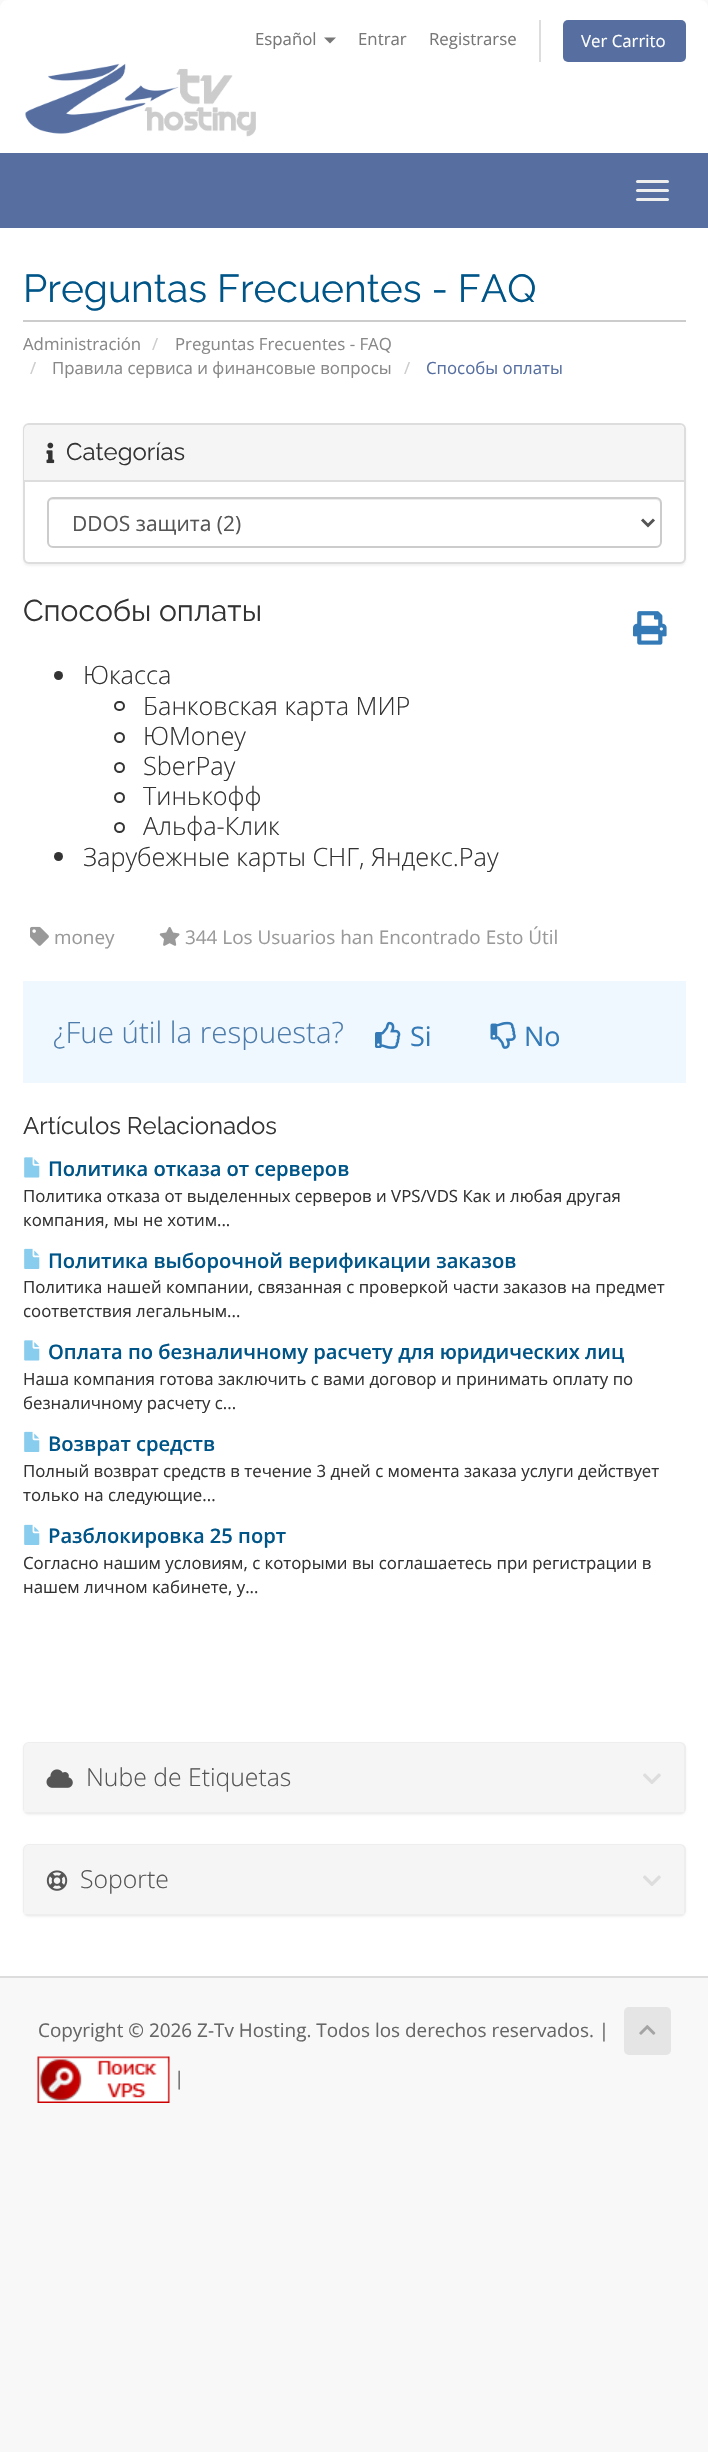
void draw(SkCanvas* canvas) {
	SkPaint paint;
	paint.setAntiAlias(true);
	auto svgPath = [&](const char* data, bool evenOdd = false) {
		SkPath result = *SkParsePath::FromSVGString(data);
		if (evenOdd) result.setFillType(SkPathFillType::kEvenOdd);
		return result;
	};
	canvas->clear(0xfff8f8f8);
	paint.setColor(0xffffffff);
	canvas->drawPath(svgPath("M8 0H700C704.5 0 708 3.5 708 8V153H0V8C0 3.5 3.5 0 8 0Z"), paint);
	SkFont f1(fontMgr->matchFamilyStyle("Open Sans", SkFontStyle::Normal()), 16.8);
	f1.setSubpixel(true);
	paint.setColor(0xff777777);
	canvas->drawString("Español", 255, 45, f1, paint);
	canvas->drawPath(svgPath("M324 37.5H336L330 43.5Z"), paint);
	canvas->drawString("Entrar", 358, 45, f1, paint);
	canvas->drawString("Registrarse", 429, 45, f1, paint);
	paint.setColor(0xffdddddd);
	canvas->drawRect(SkRect::MakeXYWH(539, 20, 2, 42), paint);
	paint.setColor(0xff566fa0);
	canvas->drawRoundRect(SkRect::MakeXYWH(563, 20, 123, 42), 5, 5, paint);
	paint.setColor(0xffffffff);
	canvas->drawString("Ver Carrito", 581, 47, f1, paint);
	canvas->drawImageRect(SkImages::DeferredFromEncodedData(SkData::MakeFromFileName("img1.png")), SkRect::MakeXYWH(25, 63, 231, 74), SkSamplingOptions());
	paint.setColor(0xff566fa0);
	canvas->drawRect(SkRect::MakeXYWH(0, 153, 708, 75), paint);
	paint.setColor(0xffeeeeee);
	canvas->drawRoundRect(SkRect::MakeXYWH(636, 180, 33, 3), 1.5, 1.5, paint);
	canvas->drawRoundRect(SkRect::MakeXYWH(636, 189, 33, 3), 1.5, 1.5, paint);
	canvas->drawRoundRect(SkRect::MakeXYWH(636, 198, 33, 3), 1.5, 1.5, paint);
	paint.setColor(0xffffffff);
	canvas->drawRect(SkRect::MakeXYWH(0, 228, 708, 1748), paint);
	paint.setColor(0xffcccccc);
	canvas->drawRect(SkRect::MakeXYWH(23, 320, 663, 2), paint);
	SkFont f2(fontMgr->matchFamilyStyle("Raleway", SkFontStyle::Normal()), 39);
	f2.setSubpixel(true);
	paint.setColor(0xff005588);
	canvas->drawString("Preguntas Frecuentes - FAQ", 23, 302, f2, paint);
	paint.setColor(0xff888888);
	canvas->drawString("Administración", 23, 350, f1, paint);
	paint.setColor(0xffcccccc);
	canvas->drawString("/", 152, 350, f1, paint);
	paint.setColor(0xff888888);
	canvas->drawString("Preguntas Frecuentes - FAQ", 175, 350, f1, paint);
	paint.setColor(0xffcccccc);
	canvas->drawString("/", 30, 374, f1, paint);
	paint.setColor(0xff888888);
	canvas->drawString("Правила сервиса и финансовые вопросы", 52, 374, f1, paint);
	paint.setColor(0xffcccccc);
	canvas->drawString("/", 404, 374, f1, paint);
	paint.setColor(0xff566fa0);
	canvas->drawString("Способы оплаты", 426, 374, f1, paint);
	paint.setColor(0x0d000000);
	paint.setMaskFilter(SkMaskFilter::MakeBlur(kNormal_SkBlurStyle, 1));
	canvas->drawRoundRect(SkRect::MakeXYWH(23, 425, 663, 141), 6, 6, paint);
	paint.setMaskFilter(nullptr);
	paint.setColor(0xffffffff);
	canvas->drawRoundRect(SkRect::MakeXYWH(24, 424, 661, 139), 5, 5, paint);
	paint.setStroke(true);
	paint.setStrokeWidth(2);
	paint.setColor(0xffdddddd);
	canvas->drawRoundRect(SkRect::MakeXYWH(24, 424, 661, 139), 5, 5, paint);
	paint.setStroke(false);
	paint.setColor(0xfff5f5f5);
	canvas->drawPath(svgPath("M29 425H679C682 425 684 427 684 430V482H24V430C24 427 26 425 29 425Z"), paint);
	paint.setColor(0xffdddddd);
	canvas->drawRect(SkRect::MakeXYWH(24, 480, 660, 2), paint);
	canvas->drawImageRect(SkImages::DeferredFromEncodedData(SkData::MakeFromFileName("img2.png")), SkRect::MakeXYWH(46, 442, 9, 22), SkSamplingOptions());
	SkFont f3(fontMgr->matchFamilyStyle("Raleway", SkFontStyle::Normal()), 24);
	f3.setSubpixel(true);
	paint.setColor(0xff333333);
	canvas->drawString("Categorías", 66, 460, f3, paint);
	paint.setColor(0xffececec);
	canvas->drawPath(svgPath("M52 500H656C658 500 660 502 660 504V503C660 500 658 498 655 498H53C50 498 48 500 48 503V504C48 502 50 500 52 500Z"), paint);
	paint.setStroke(true);
	paint.setColor(0xffcccccc);
	canvas->drawRoundRect(SkRect::MakeXYWH(48, 498, 613, 49), 5, 5, paint);
	paint.setStrokeWidth(3);
	paint.setColor(0xff555555);
	canvas->drawPath(svgPath("M642 519.5L648 525.5L654 519.5"), paint);
	SkFont f4(fontMgr->matchFamilyStyle("Open Sans", SkFontStyle::Normal()), 21);
	f4.setSubpixel(true);
	paint.setStroke(false);
	canvas->drawString("DDOS защита (2)", 72, 531, f4, paint);
	SkFont f5(fontMgr->matchFamilyStyle("Raleway", SkFontStyle::Normal()), 30);
	f5.setSubpixel(true);
	paint.setColor(0xff333333);
	canvas->drawString("Способы оплаты", 23, 621, f5, paint);
	canvas->drawImageRect(SkImages::DeferredFromEncodedData(SkData::MakeFromFileName("img3.png")), SkRect::MakeXYWH(633, 611, 34, 34), SkSamplingOptions());
	canvas->drawCircle(58.5, 675.5, 4.5, paint);
	SkFont f6(fontMgr->matchFamilyStyle("Open Sans", SkFontStyle(300, SkFontStyle::kNormal_Width, SkFontStyle::kUpright_Slant)), 25.25);
	f6.setSubpixel(true);
	canvas->drawString("Юкасса", 83, 684, f6, paint);
	paint.setStroke(true);
	paint.setStrokeWidth(2);
	canvas->drawRoundRect(SkRect::MakeXYWH(115, 702, 9, 8), 4, 4, paint);
	paint.setStroke(false);
	canvas->drawString("Банковская карта МИР", 143, 715, f6, paint);
	paint.setStroke(true);
	canvas->drawCircle(119.5, 737.5, 4.5, paint);
	paint.setStroke(false);
	canvas->drawString("ЮMoney", 143, 745, f6, paint);
	paint.setStroke(true);
	canvas->drawCircle(119.5, 767.5, 4.5, paint);
	paint.setStroke(false);
	canvas->drawString("SberPay", 143, 775, f6, paint);
	paint.setStroke(true);
	canvas->drawCircle(119.5, 797.5, 4.5, paint);
	paint.setStroke(false);
	canvas->drawString("Тинькофф", 143, 805, f6, paint);
	paint.setStroke(true);
	canvas->drawCircle(119.5, 827.5, 4.5, paint);
	paint.setStroke(false);
	canvas->drawString("Альфа-Клик", 143, 835, f6, paint);
	canvas->drawCircle(58.5, 856.5, 4.5, paint);
	canvas->drawString("Зарубежные карты СНГ, Яндекс.Pay", 83, 866, f6, paint);
	canvas->drawImageRect(SkImages::DeferredFromEncodedData(SkData::MakeFromFileName("img4.png")), SkRect::MakeXYWH(30, 926, 19, 20), SkSamplingOptions());
	SkFont f7(fontMgr->matchFamilyStyle("Open Sans", SkFontStyle::Normal()), 18.9);
	f7.setSubpixel(true);
	paint.setColor(0xff999999);
	canvas->drawString("money", 54, 944, f7, paint);
	canvas->drawImageRect(SkImages::DeferredFromEncodedData(SkData::MakeFromFileName("img5.png")), SkRect::MakeXYWH(159, 927, 21, 19), SkSamplingOptions());
	canvas->drawString("344 Los Usuarios han Encontrado Esto Útil", 185, 944, f7, paint);
	paint.setColor(0xffeff7ff);
	canvas->drawRect(SkRect::MakeXYWH(23, 981, 663, 102), paint);
	SkFont f8(fontMgr->matchFamilyStyle("Open Sans", SkFontStyle(300, SkFontStyle::kNormal_Width, SkFontStyle::kUpright_Slant)), 29.5);
	f8.setSubpixel(true);
	paint.setColor(0xff4d7cab);
	canvas->drawString("¿Fue útil la respuesta?", 53, 1043, f8, paint);
	canvas->drawImageRect(SkImages::DeferredFromEncodedData(SkData::MakeFromFileName("img6.png")), SkRect::MakeXYWH(375, 1021, 26, 28), SkSamplingOptions());
	SkFont f9(fontMgr->matchFamilyStyle("Open Sans", SkFontStyle::Normal()), 27);
	f9.setSubpixel(true);
	paint.setColor(0xff337ab7);
	canvas->drawString("Si", 410, 1046, f9, paint);
	canvas->drawImageRect(SkImages::DeferredFromEncodedData(SkData::MakeFromFileName("img7.png")), SkRect::MakeXYWH(490, 1021, 26, 28), SkSamplingOptions());
	canvas->drawString("No", 524, 1046, f9, paint);
	paint.setColor(0xff333333);
	canvas->drawString("Artículos Relacionados", 23, 1134, f3, paint);
	canvas->drawImageRect(SkImages::DeferredFromEncodedData(SkData::MakeFromFileName("img8.png")), SkRect::MakeXYWH(24, 1157, 16, 21), SkSamplingOptions());
	SkFont f10(fontMgr->matchFamilyStyle("Open Sans", SkFontStyle(600, SkFontStyle::kNormal_Width, SkFontStyle::kUpright_Slant)), 20.15);
	f10.setSubpixel(true);
	paint.setColor(0xff005588);
	canvas->drawString("Политика отказа от серверов", 48, 1176, f10, paint);
	paint.setColor(0xff333333);
	canvas->drawString("Политика отказа от выделенных серверов и VPS/VDS Как и любая другая", 23, 1202, f1, paint);
	canvas->drawString("компания, мы не хотим...", 23, 1226, f1, paint);
	canvas->drawImageRect(SkImages::DeferredFromEncodedData(SkData::MakeFromFileName("img9.png")), SkRect::MakeXYWH(24, 1248, 16, 21), SkSamplingOptions());
	paint.setColor(0xff005588);
	canvas->drawString("Политика выборочной верификации заказов", 48, 1268, f10, paint);
	paint.setColor(0xff333333);
	canvas->drawString("Политика нашей компании, связанная с проверкой части заказов на предмет", 23, 1293, f1, paint);
	canvas->drawString("соответствия легальным...", 23, 1317, f1, paint);
	canvas->drawImageRect(SkImages::DeferredFromEncodedData(SkData::MakeFromFileName("img8.png")), SkRect::MakeXYWH(24, 1340, 16, 21), SkSamplingOptions());
	paint.setColor(0xff005588);
	canvas->drawString("Оплата по безналичному расчету для юридических лиц", 48, 1359, f10, paint);
	paint.setColor(0xff333333);
	canvas->drawString("Наша компания готова заключить с вами договор и принимать оплату по", 23, 1385, f1, paint);
	canvas->drawString("безналичному расчету с...", 23, 1409, f1, paint);
	canvas->drawImageRect(SkImages::DeferredFromEncodedData(SkData::MakeFromFileName("img9.png")), SkRect::MakeXYWH(24, 1431, 16, 21), SkSamplingOptions());
	paint.setColor(0xff005588);
	canvas->drawString("Возврат средств", 48, 1451, f10, paint);
	paint.setColor(0xff333333);
	canvas->drawString("Полный возврат средств в течение 3 дней с момента заказа услуги действует", 23, 1477, f1, paint);
	canvas->drawString("только на следующие...", 23, 1501, f1, paint);
	canvas->drawImageRect(SkImages::DeferredFromEncodedData(SkData::MakeFromFileName("img9.png")), SkRect::MakeXYWH(24, 1524, 16, 21), SkSamplingOptions());
	paint.setColor(0xff005588);
	canvas->drawString("Разблокировка 25 порт", 48, 1543, f10, paint);
	paint.setColor(0xff333333);
	canvas->drawString("Согласно нашим условиям, с которыми вы соглашаетесь при регистрации в", 23, 1569, f1, paint);
	canvas->drawString("нашем личном кабинете, у...", 23, 1593, f1, paint);
	paint.setColor(0x0d000000);
	paint.setMaskFilter(SkMaskFilter::MakeBlur(kNormal_SkBlurStyle, 1));
	canvas->drawRoundRect(SkRect::MakeXYWH(23, 1743, 663, 72), 6, 6, paint);
	paint.setMaskFilter(nullptr);
	paint.setStroke(true);
	paint.setColor(0xffeeeeee);
	canvas->drawRoundRect(SkRect::MakeXYWH(24, 1743, 661, 70), 5, 5, paint);
	paint.setStroke(false);
	paint.setColor(0xfff5f5f5);
	canvas->drawPath(svgPath("M29 1743H679C682 1743 684 1745 684 1748V1812H24V1748C24 1745 26 1743 29 1743Z"), paint);
	canvas->drawImageRect(SkImages::DeferredFromEncodedData(SkData::MakeFromFileName("img10.png")), SkRect::MakeXYWH(46, 1769, 27, 19), SkSamplingOptions());
	SkFont f11(fontMgr->matchFamilyStyle("Open Sans", SkFontStyle(300, SkFontStyle::kNormal_Width, SkFontStyle::kUpright_Slant)), 24.75);
	f11.setSubpixel(true);
	paint.setColor(0xff555555);
	canvas->drawString("Nube de Etiquetas", 86, 1786, f11, paint);
	canvas->drawImageRect(SkImages::DeferredFromEncodedData(SkData::MakeFromFileName("img11.png")), SkRect::MakeXYWH(643, 1773, 18, 11), SkSamplingOptions());
	paint.setColor(0x0d000000);
	paint.setMaskFilter(SkMaskFilter::MakeBlur(kNormal_SkBlurStyle, 1));
	canvas->drawRoundRect(SkRect::MakeXYWH(23, 1845, 663, 72), 6, 6, paint);
	paint.setMaskFilter(nullptr);
	paint.setStroke(true);
	paint.setColor(0xffeeeeee);
	canvas->drawRoundRect(SkRect::MakeXYWH(24, 1845, 661, 70), 5, 5, paint);
	paint.setStroke(false);
	paint.setColor(0xfff5f5f5);
	canvas->drawPath(svgPath("M29 1845H679C682 1845 684 1847 684 1850V1914H24V1850C24 1847 26 1845 29 1845Z"), paint);
	canvas->drawImageRect(SkImages::DeferredFromEncodedData(SkData::MakeFromFileName("img12.png")), SkRect::MakeXYWH(46, 1870, 22, 21), SkSamplingOptions());
	paint.setColor(0xff555555);
	canvas->drawString("Soporte", 80, 1888, f11, paint);
	canvas->drawImageRect(SkImages::DeferredFromEncodedData(SkData::MakeFromFileName("img11.png")), SkRect::MakeXYWH(643, 1875, 18, 11), SkSamplingOptions());
	paint.setColor(0xffdddddd);
	canvas->drawRect(SkRect::MakeXYWH(0, 1976, 708, 2), paint);
	paint.setColor(0xff666666);
	canvas->drawString("Copyright © 2026 Z-Tv Hosting. Todos los derechos reservados. |", 38, 2037, f7, paint);
	canvas->drawImageRect(SkImages::DeferredFromEncodedData(SkData::MakeFromFileName("img13.png")), SkRect::MakeXYWH(37, 2056, 133, 47), SkSamplingOptions());
	canvas->drawString("|", 174, 2085, f7, paint);
	paint.setColor(0xffe5e5e5);
	canvas->drawRoundRect(SkRect::MakeXYWH(624, 2007, 47, 48), 5, 5, paint);
	canvas->drawImageRect(SkImages::DeferredFromEncodedData(SkData::MakeFromFileName("img14.png")), SkRect::MakeXYWH(639, 2025, 17, 10), SkSamplingOptions());
}
